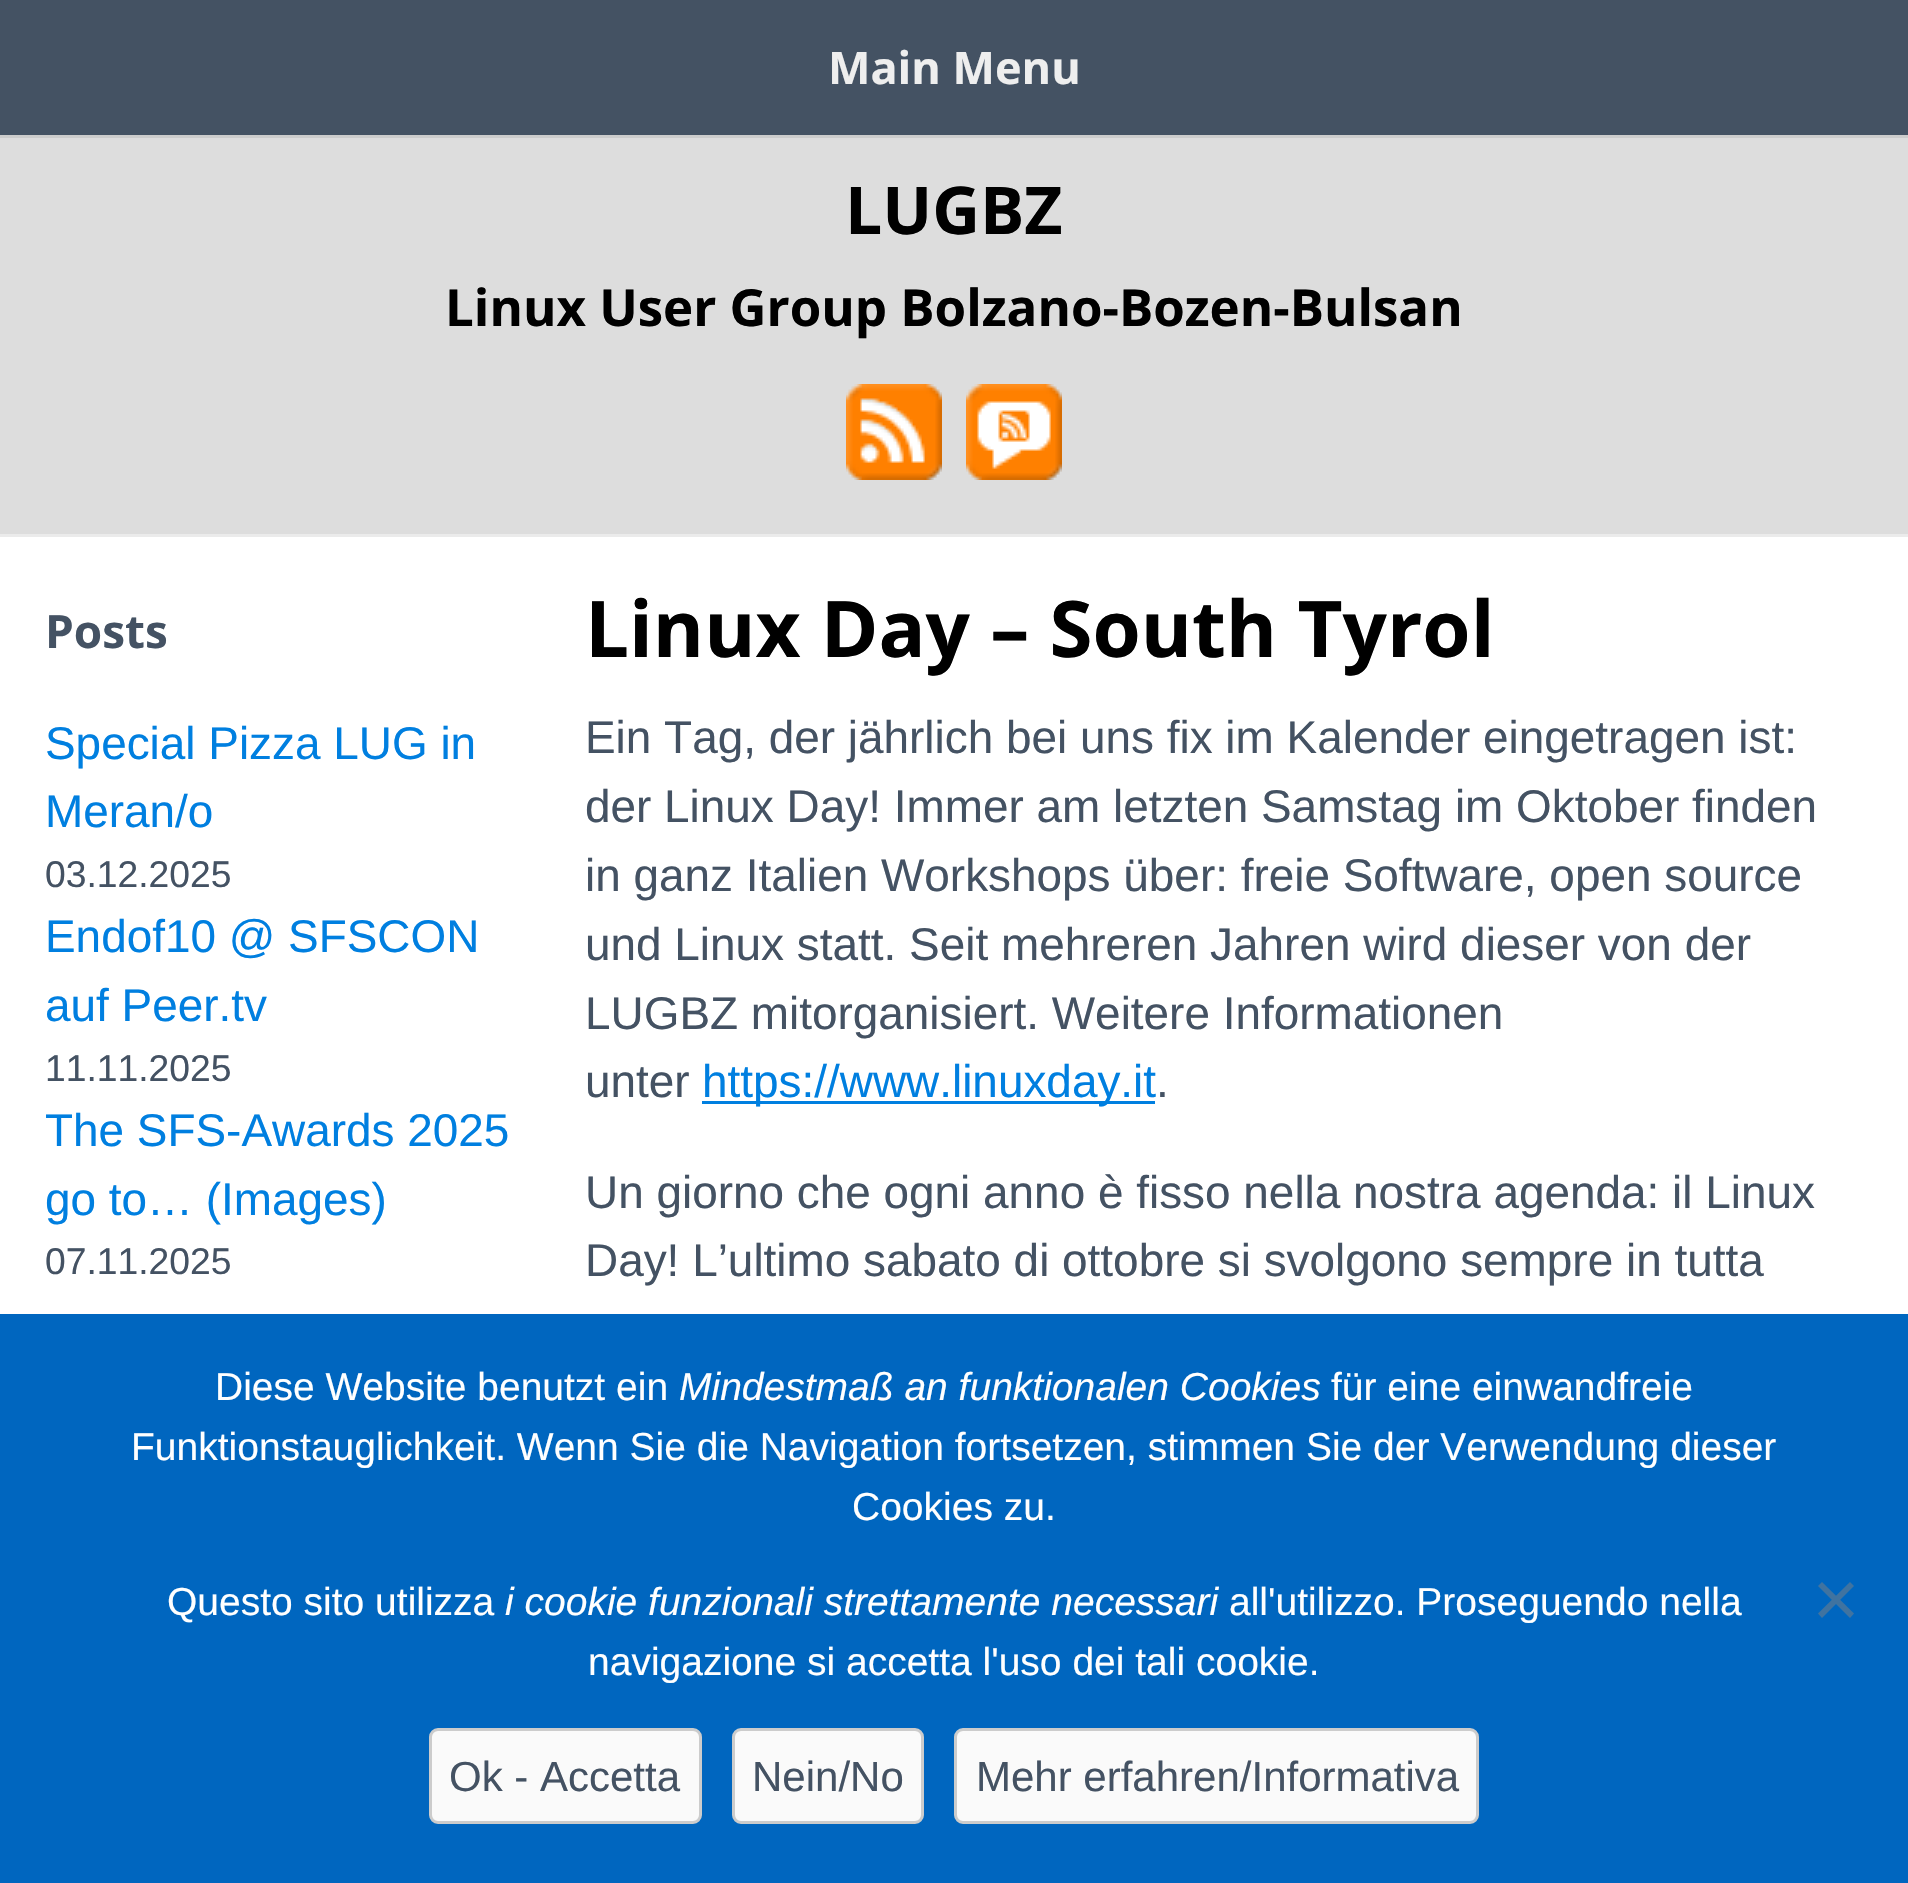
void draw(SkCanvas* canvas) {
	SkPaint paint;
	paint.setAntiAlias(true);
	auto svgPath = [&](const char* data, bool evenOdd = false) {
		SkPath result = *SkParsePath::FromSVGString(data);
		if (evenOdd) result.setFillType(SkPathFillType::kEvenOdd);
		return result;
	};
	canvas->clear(0xff445263);
	paint.setColor(0xffcccccc);
	canvas->drawRect(SkRect::MakeXYWH(0, 135, 1908, 3), paint);
	SkFont f1(fontMgr->matchFamilyStyle("Open Sans", SkFontStyle::Bold()), 45);
	f1.setSubpixel(true);
	paint.setColor(0xffeeeeee);
	canvas->drawString("Main Menu", 828, 84, f1, paint);
	paint.setColor(0xffdddddd);
	canvas->drawRect(SkRect::MakeXYWH(0, 138, 1908, 396), paint);
	paint.setColor(0xffebebeb);
	canvas->drawRect(SkRect::MakeXYWH(0, 534, 1908, 3), paint);
	SkFont f2(fontMgr->matchFamilyStyle("Open Sans", SkFontStyle::Bold()), 66);
	f2.setSubpixel(true);
	paint.setColor(0xff000000);
	canvas->drawString("LUGBZ", 845, 234, f2, paint);
	SkFont f3(fontMgr->matchFamilyStyle("Open Sans", SkFontStyle::Bold()), 51);
	f3.setSubpixel(true);
	canvas->drawString("Linux User Group Bolzano-Bozen-Bulsan", 445, 326, f3, paint);
	canvas->drawImageRect(SkImages::DeferredFromEncodedData(SkData::MakeFromFileName("img1.png")), SkRect::MakeXYWH(846, 384, 96, 96), SkSamplingOptions());
	canvas->drawImageRect(SkImages::DeferredFromEncodedData(SkData::MakeFromFileName("img2.png")), SkRect::MakeXYWH(966, 384, 96, 96), SkSamplingOptions());
	paint.setColor(0xffffffff);
	canvas->drawRect(SkRect::MakeXYWH(0, 537, 1908, 777), paint);
	SkFont f4(fontMgr->matchFamilyStyle("Open Sans", SkFontStyle::Bold()), 45.9);
	f4.setSubpixel(true);
	paint.setColor(0xff445263);
	canvas->drawString("Posts", 45, 648, f4, paint);
	SkFont f5(fontMgr->matchFamilyStyle("Liberation Sans", SkFontStyle::Normal()), 45.9);
	f5.setSubpixel(true);
	paint.setColor(0xff007fe0);
	canvas->drawString("Special Pizza LUG in", 45, 759, f5, paint);
	canvas->drawString("Meran/o", 45, 827, f5, paint);
	SkFont f6(fontMgr->matchFamilyStyle("Liberation Sans", SkFontStyle::Normal()), 37.25);
	f6.setSubpixel(true);
	paint.setColor(0xff445263);
	canvas->drawString("03.12.2025", 45, 887, f6, paint);
	paint.setColor(0xff007fe0);
	canvas->drawString("Endof10 @ SFSCON", 45, 952, f5, paint);
	canvas->drawString("auf Peer.tv", 45, 1021, f5, paint);
	paint.setColor(0xff445263);
	canvas->drawString("11.11.2025", 45, 1081, f6, paint);
	paint.setColor(0xff007fe0);
	canvas->drawString("The SFS-Awards 2025", 45, 1146, f5, paint);
	canvas->drawString("go to… (Images)", 45, 1215, f5, paint);
	paint.setColor(0xff445263);
	canvas->drawString("07.11.2025", 45, 1274, f6, paint);
	SkFont f7(fontMgr->matchFamilyStyle("Open Sans", SkFontStyle::Bold()), 78);
	f7.setSubpixel(true);
	paint.setColor(0xff000000);
	canvas->drawString("Linux Day – South Tyrol", 585, 657, f7, paint);
	paint.setColor(0xff445263);
	canvas->drawString("Ein Tag, der jährlich bei uns fix im Kalender eingetragen ist:", 585, 753, f5, paint);
	canvas->drawString("der Linux Day! Immer am letzten Samstag im Oktober finden", 585, 822, f5, paint);
	canvas->drawString("in ganz Italien Workshops über: freie Software, open source", 585, 891, f5, paint);
	canvas->drawString("und Linux statt. Seit mehreren Jahren wird dieser von der", 585, 960, f5, paint);
	canvas->drawString("LUGBZ mitorganisiert. Weitere Informationen", 585, 1029, f5, paint);
	canvas->drawString("unter", 585, 1097, f5, paint);
	paint.setColor(0xff007fe0);
	canvas->drawRect(SkRect::MakeXYWH(702, 1101, 453, 3), paint);
	canvas->drawString("https://www.linuxday.it", 702, 1097, f5, paint);
	paint.setColor(0xff445263);
	canvas->drawString(".", 1156, 1097, f5, paint);
	canvas->drawString("Un giorno che ogni anno è fisso nella nostra agenda: il Linux", 585, 1208, f5, paint);
	canvas->drawString("Day! L’ultimo sabato di ottobre si svolgono sempre in tutta", 585, 1276, f5, paint);
	paint.setColor(0xff0066bf);
	canvas->drawRect(SkRect::MakeXYWH(0, 1314, 1908, 569), paint);
	SkFont f8(fontMgr->matchFamilyStyle("Liberation Sans", SkFontStyle::Normal()), 39);
	f8.setSubpixel(true);
	paint.setColor(0xffffffff);
	canvas->drawString("Diese Website benutzt ein", 215, 1400, f8, paint);
	SkFont f9(fontMgr->matchFamilyStyle("Liberation Sans", SkFontStyle::Italic()), 39);
	f9.setSubpixel(true);
	canvas->drawString("Mindestmaß an funktionalen Cookies", 679, 1400, f9, paint);
	canvas->drawString("für eine einwandfreie", 1331, 1400, f8, paint);
	canvas->drawString("Funktionstauglichkeit. Wenn Sie die Navigation fortsetzen, stimmen Sie der Verwendung dieser", 131, 1460, f8, paint);
	canvas->drawString("Cookies zu.", 852, 1520, f8, paint);
	canvas->drawString("Questo sito utilizza", 167, 1615, f8, paint);
	canvas->drawString("i cookie funzionali strettamente necessari", 505, 1615, f9, paint);
	canvas->drawString("all'utilizzo. Proseguendo nella", 1229, 1615, f8, paint);
	canvas->drawString("navigazione si accetta l'uso dei tali cookie.", 588, 1675, f8, paint);
	paint.setColor(0xff4073a0);
	canvas->drawPath(svgPath("M1850 1582L1854 1586L1822 1618L1818 1613.5Z"), paint);
	canvas->drawPath(svgPath("M1818 1586L1822 1582L1854 1613.5L1850 1618Z"), paint);
	paint.setColor(0xfffafafa);
	canvas->drawRoundRect(SkRect::MakeXYWH(430.5, 1729.5, 270, 93), 7.5, 7.5, paint);
	paint.setStroke(true);
	paint.setStrokeWidth(3);
	paint.setColor(0xffcccccc);
	canvas->drawRoundRect(SkRect::MakeXYWH(430.5, 1729.5, 270, 93), 7.5, 7.5, paint);
	SkFont f10(fontMgr->matchFamilyStyle("Liberation Sans", SkFontStyle::Normal()), 42);
	f10.setSubpixel(true);
	paint.setStroke(false);
	paint.setColor(0xff445263);
	canvas->drawString("Ok - Accetta", 449, 1791, f10, paint);
	paint.setColor(0xfffafafa);
	canvas->drawRoundRect(SkRect::MakeXYWH(733.5, 1729.5, 189, 93), 7.5, 7.5, paint);
	paint.setStroke(true);
	paint.setColor(0xffcccccc);
	canvas->drawRoundRect(SkRect::MakeXYWH(733.5, 1729.5, 189, 93), 7.5, 7.5, paint);
	paint.setStroke(false);
	paint.setColor(0xff445263);
	canvas->drawString("Nein/No", 752, 1791, f10, paint);
	paint.setColor(0xfffafafa);
	canvas->drawRoundRect(SkRect::MakeXYWH(955.5, 1729.5, 522, 93), 7.5, 7.5, paint);
	paint.setStroke(true);
	paint.setColor(0xffcccccc);
	canvas->drawRoundRect(SkRect::MakeXYWH(955.5, 1729.5, 522, 93), 7.5, 7.5, paint);
	paint.setStroke(false);
	paint.setColor(0xff445263);
	canvas->drawString("Mehr erfahren/Informativa", 976, 1791, f10, paint);
}
